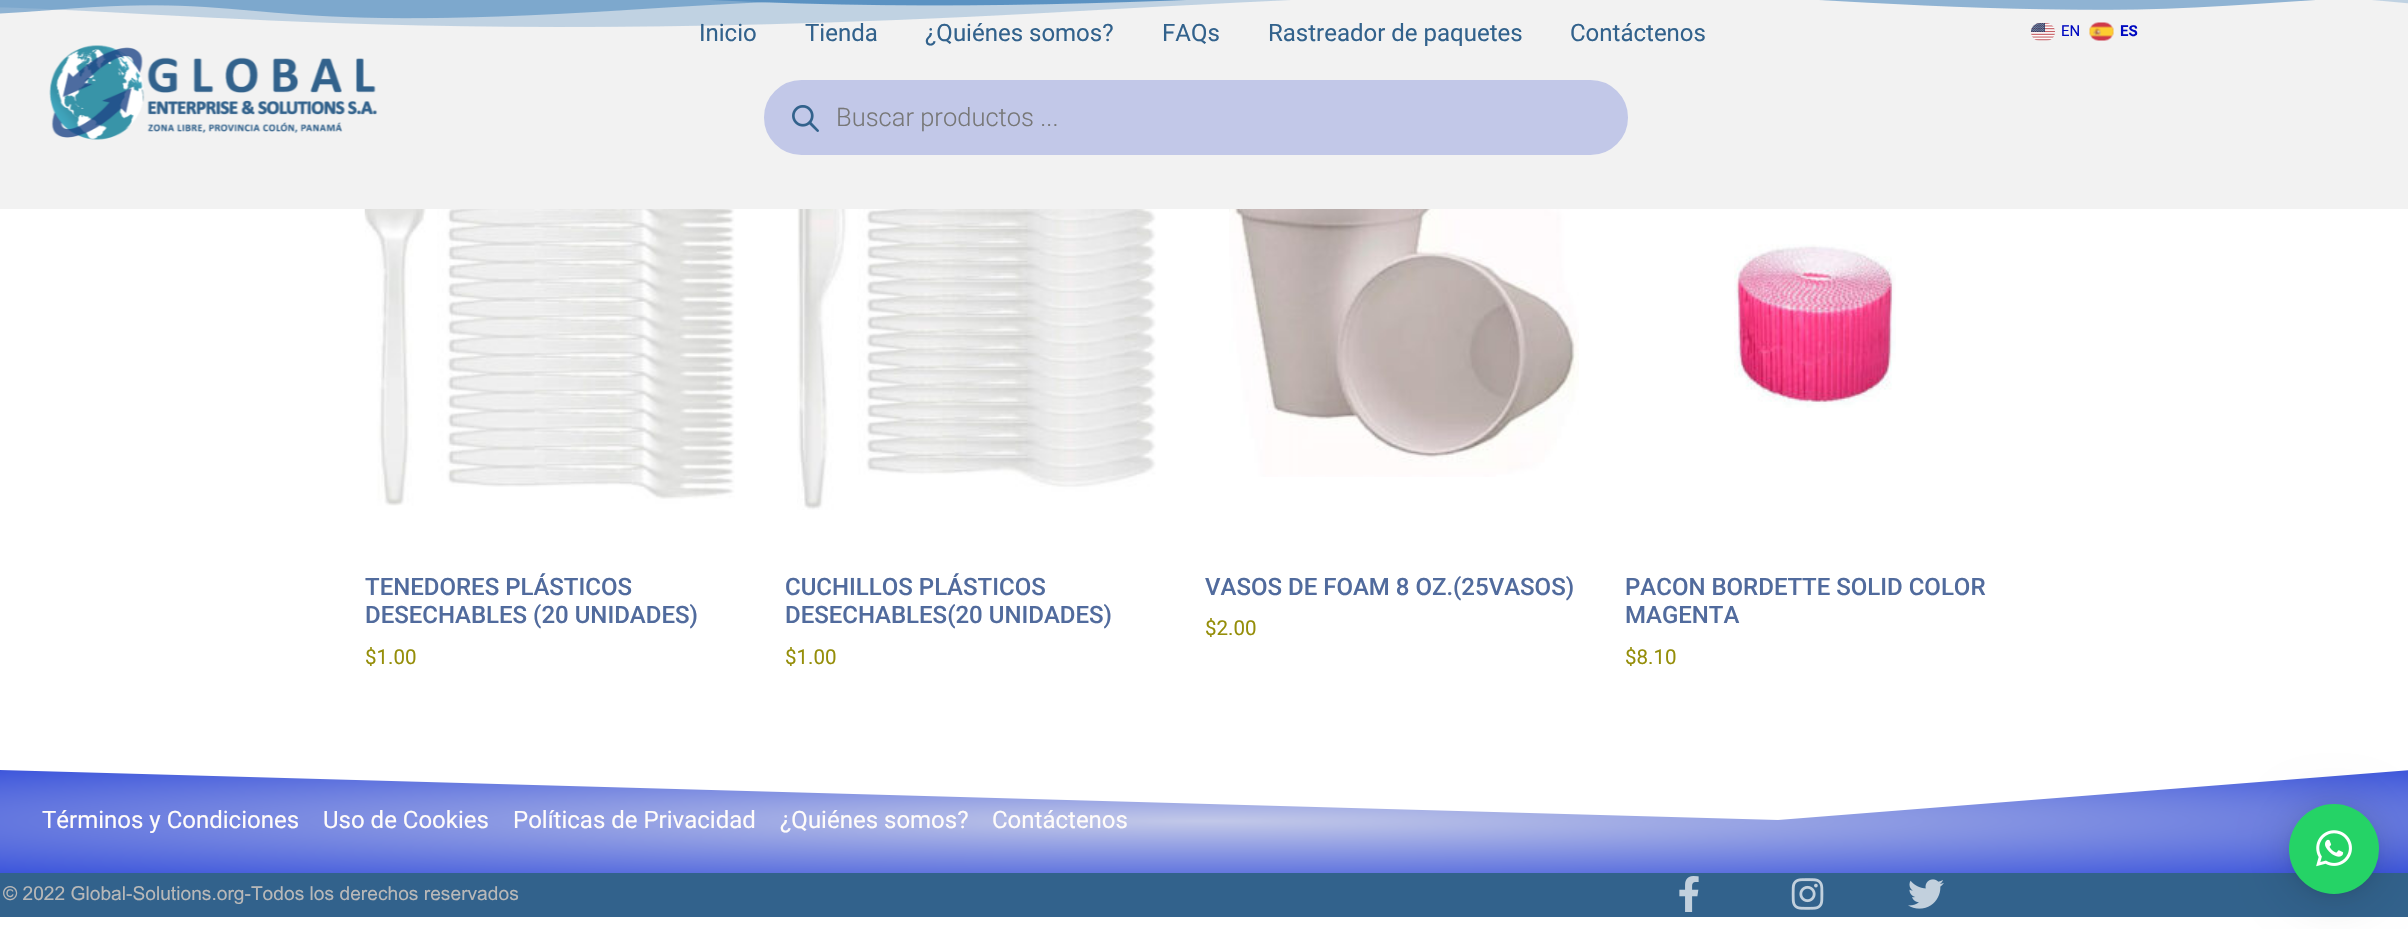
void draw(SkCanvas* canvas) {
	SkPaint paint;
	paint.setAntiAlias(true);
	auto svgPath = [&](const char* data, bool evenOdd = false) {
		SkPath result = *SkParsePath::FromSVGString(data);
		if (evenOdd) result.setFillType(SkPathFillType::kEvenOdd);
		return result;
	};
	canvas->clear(0xffffffff);
	paint.setColor(0xfff2f2f2);
	canvas->drawRect(SkRect::MakeXYWH(0, 0, 2408, 209), paint);
	canvas->drawImageRect(SkImages::DeferredFromEncodedData(SkData::MakeFromFileName("img1.png")), SkRect::MakeXYWH(0, 0, 2408, 27), SkSamplingOptions());
	SkFont f1(fontMgr->matchFamilyStyle("Roboto", SkFontStyle::Normal()), 24);
	f1.setSubpixel(true);
	paint.setColor(0xff32628c);
	canvas->drawString("Inicio", 699, 41, f1, paint);
	canvas->drawString("Tienda", 805, 41, f1, paint);
	canvas->drawString("¿Quiénes somos?", 925, 41, f1, paint);
	canvas->drawString("FAQs", 1162, 41, f1, paint);
	canvas->drawString("Rastreador de paquetes", 1268, 41, f1, paint);
	canvas->drawString("Contáctenos", 1570, 41, f1, paint);
	paint.setColor(0xffc2c8e8);
	canvas->drawRoundRect(SkRect::MakeXYWH(762.5, 78.5, 867, 78), 39, 39, paint);
	paint.setStroke(true);
	paint.setStrokeWidth(3);
	paint.setColor(0xfff2f2f2);
	canvas->drawRoundRect(SkRect::MakeXYWH(762.5, 78.5, 867, 78), 39, 39, paint);
	canvas->drawImageRect(SkImages::DeferredFromEncodedData(SkData::MakeFromFileName("img2.png")), SkRect::MakeXYWH(792, 105, 27, 27), SkSamplingOptions());
	SkFont f2(fontMgr->matchFamilyStyle("Roboto", SkFontStyle(300, SkFontStyle::kNormal_Width, SkFontStyle::kUpright_Slant)), 25.5);
	f2.setSubpixel(true);
	paint.setStroke(false);
	paint.setColor(0xff777777);
	canvas->drawString("Buscar productos ...", 836, 126, f2, paint);
	canvas->drawImageRect(SkImages::DeferredFromEncodedData(SkData::MakeFromFileName("img3.png")), SkRect::MakeXYWH(2031, 23, 24, 18), SkSamplingOptions());
	SkFont f3(fontMgr->matchFamilyStyle("Roboto", SkFontStyle::Normal()), 15);
	f3.setSubpixel(true);
	paint.setColor(0xff0009c1);
	canvas->drawString("EN", 2061, 36, f3, paint);
	canvas->drawImageRect(SkImages::DeferredFromEncodedData(SkData::MakeFromFileName("img4.png")), SkRect::MakeXYWH(2089, 22, 25, 19), SkSamplingOptions());
	SkFont f4(fontMgr->matchFamilyStyle("Roboto", SkFontStyle::Bold()), 15);
	f4.setSubpixel(true);
	canvas->drawString("ES", 2120, 36, f4, paint);
	canvas->drawImageRect(SkImages::DeferredFromEncodedData(SkData::MakeFromFileName("img5.png")), SkRect::MakeXYWH(49, 45, 329, 95), SkSamplingOptions());
	canvas->drawImageRect(SkImages::DeferredFromEncodedData(SkData::MakeFromFileName("img6.png")), SkRect::MakeXYWH(364, 209, 371, 297), SkSamplingOptions());
	SkFont f5(fontMgr->matchFamilyStyle("Roboto", SkFontStyle(500, SkFontStyle::kNormal_Width, SkFontStyle::kUpright_Slant)), 24);
	f5.setSubpixel(true);
	paint.setColor(0xff516b9d);
	canvas->drawString("TENEDORES PLÁSTICOS", 365, 595, f5, paint);
	canvas->drawString("DESECHABLES (20 UNIDADES)", 365, 623, f5, paint);
	SkFont f6(fontMgr->matchFamilyStyle("Roboto", SkFontStyle::Normal()), 20.5);
	f6.setSubpixel(true);
	paint.setColor(0xff958e09);
	canvas->drawString("$1.00", 365, 664, f6, paint);
	canvas->drawImageRect(SkImages::DeferredFromEncodedData(SkData::MakeFromFileName("img7.png")), SkRect::MakeXYWH(797, 209, 359, 301), SkSamplingOptions());
	paint.setColor(0xff516b9d);
	canvas->drawString("CUCHILLOS PLÁSTICOS", 785, 595, f5, paint);
	canvas->drawString("DESECHABLES(20 UNIDADES)", 785, 623, f5, paint);
	paint.setColor(0xff958e09);
	canvas->drawString("$1.00", 785, 664, f6, paint);
	canvas->drawImageRect(SkImages::DeferredFromEncodedData(SkData::MakeFromFileName("img8.png")), SkRect::MakeXYWH(1229, 209, 350, 268), SkSamplingOptions());
	paint.setColor(0xff516b9d);
	canvas->drawString("VASOS DE FOAM 8 OZ.(25VASOS)", 1205, 595, f5, paint);
	paint.setColor(0xff958e09);
	canvas->drawString("$2.00", 1205, 635, f6, paint);
	canvas->drawImageRect(SkImages::DeferredFromEncodedData(SkData::MakeFromFileName("img9.png")), SkRect::MakeXYWH(1734, 244, 162, 164), SkSamplingOptions());
	paint.setColor(0xff516b9d);
	canvas->drawString("PACON BORDETTE SOLID COLOR", 1625, 595, f5, paint);
	canvas->drawString("MAGENTA", 1625, 623, f5, paint);
	paint.setColor(0xff958e09);
	canvas->drawString("$8.10", 1625, 664, f6, paint);
	{
		const SkColor colors[] = {0xffc2c8e8, 0xff3c55db};
		const float stops[] = {0, 1};
		SkMatrix m = SkMatrix::Translate(1205, 821).preScale(1703, 74);
		paint.setShader(SkGradientShader::MakeRadial({0, 0}, 1, colors, stops, 2, SkTileMode::kClamp, 0, &m));
		paint.setAlpha(255);
	}
	canvas->drawRect(SkRect::MakeXYWH(0, 770, 2408, 103), paint);
	canvas->save();
	canvas->clipRect(SkRect::MakeXYWH(0, 767, 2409, 54));
	paint.setShader(nullptr);
	paint.setColor(0xffffffff);
	canvas->drawPath(svgPath("M1778 820L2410 770V766H-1V770Z"), paint);
	canvas->restore();
	paint.setColor(0xfffffcfa);
	canvas->drawString("Términos y Condiciones", 42, 828, f1, paint);
	canvas->drawString("Uso de Cookies", 323, 828, f1, paint);
	canvas->drawString("Políticas de Privacidad", 513, 828, f1, paint);
	canvas->drawString("¿Quiénes somos?", 780, 828, f1, paint);
	canvas->drawString("Contáctenos", 992, 828, f1, paint);
	paint.setColor(0xff32628c);
	canvas->drawRect(SkRect::MakeXYWH(0, 873, 2408, 44), paint);
	SkFont f7(fontMgr->matchFamilyStyle("Arial", SkFontStyle::Normal()), 19.2);
	f7.setSubpixel(true);
	paint.setColor(0xffb8b8b8);
	canvas->drawString("© 2022 Global-Solutions.org-Todos los derechos reservados", 3, 900, f7, paint);
	canvas->drawImageRect(SkImages::DeferredFromEncodedData(SkData::MakeFromFileName("img10.png")), SkRect::MakeXYWH(1679, 876, 20, 36), SkSamplingOptions());
	canvas->drawImageRect(SkImages::DeferredFromEncodedData(SkData::MakeFromFileName("img11.png")), SkRect::MakeXYWH(1791, 878, 33, 32), SkSamplingOptions());
	canvas->drawImageRect(SkImages::DeferredFromEncodedData(SkData::MakeFromFileName("img12.png")), SkRect::MakeXYWH(1908, 879, 36, 30), SkSamplingOptions());
	paint.setColor(0x29000000);
	paint.setMaskFilter(SkMaskFilter::MakeBlur(kNormal_SkBlurStyle, 24));
	canvas->drawRoundRect(SkRect::MakeXYWH(2289, 807, 90, 90), 45, 45, paint);
	paint.setMaskFilter(nullptr);
	paint.setColor(0x0f000000);
	paint.setMaskFilter(SkMaskFilter::MakeBlur(kNormal_SkBlurStyle, 4.5));
	canvas->drawRoundRect(SkRect::MakeXYWH(2289, 806, 90, 90), 45, 45, paint);
	paint.setMaskFilter(nullptr);
	paint.setColor(0xff25d366);
	canvas->drawCircle(2334, 849, 45, paint);
	canvas->drawImageRect(SkImages::DeferredFromEncodedData(SkData::MakeFromFileName("img13.png")), SkRect::MakeXYWH(2316, 830, 36, 37), SkSamplingOptions());
}
